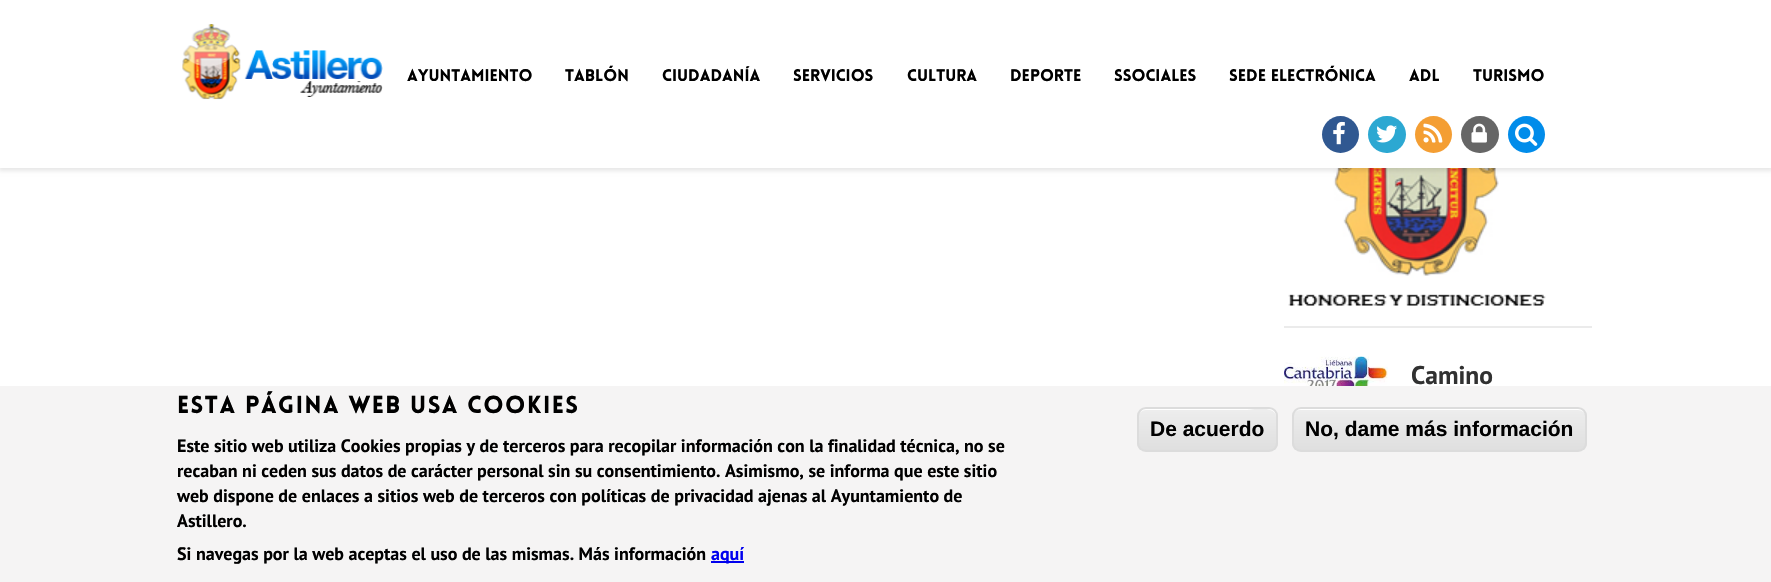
void draw(SkCanvas* canvas) {
	SkPaint paint;
	paint.setAntiAlias(true);
	auto spacedText = [&](const char* s, float x, float y, const SkFont& font, const SkPaint& ink, float letter, float word) {
		std::vector<SkGlyphID> glyphs(font.countText(s, strlen(s), SkTextEncoding::kUTF8));
		std::vector<float> xs(glyphs.size());
		font.textToGlyphs(s, strlen(s), SkTextEncoding::kUTF8, glyphs);
		font.getXPos(glyphs, xs, x);
		float extra = 0;
		for (size_t i = 0; i < glyphs.size(); i++) {
			xs[i] += extra;
			extra += letter + word * (glyphs[i] == font.unicharToGlyph(' '));
		}
		canvas->drawTextBlob(SkTextBlob::MakeFromPosHGlyphs(glyphs, xs, y, font), 0, 0, ink);
	};
	auto svgPath = [&](const char* data, bool evenOdd = false) {
		SkPath result = *SkParsePath::FromSVGString(data);
		if (evenOdd) result.setFillType(SkPathFillType::kEvenOdd);
		return result;
	};
	canvas->clear(0xffffffff);
	canvas->drawImageRect(SkImages::DeferredFromEncodedData(SkData::MakeFromFileName("img7.png")), SkRect::MakeXYWH(1288, 168, 258, 138), SkSamplingOptions());
	paint.setColor(0x17000000);
	paint.setMaskFilter(SkMaskFilter::MakeBlur(kNormal_SkBlurStyle, 2));
	canvas->drawRect(SkRect::MakeXYWH(-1, 0, 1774, 171), paint);
	paint.setMaskFilter(nullptr);
	paint.setColor(0xffffffff);
	canvas->drawRect(SkRect::MakeXYWH(0, 0, 1771, 168), paint);
	canvas->drawImageRect(SkImages::DeferredFromEncodedData(SkData::MakeFromFileName("img1.png")), SkRect::MakeXYWH(182, 24, 201, 76), SkSamplingOptions());
	SkFont f1(fontMgr->matchFamilyStyle("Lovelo", SkFontStyle(900, SkFontStyle::kNormal_Width, SkFontStyle::kUpright_Slant)), 16.5);
	f1.setSubpixel(true);
	paint.setColor(0xff000000);
	canvas->drawString("Ayuntamiento", 407, 81, f1, paint);
	canvas->drawString("Tablón", 565, 81, f1, paint);
	canvas->drawString("Ciudadanía", 662, 81, f1, paint);
	canvas->drawString("Servicios", 793, 81, f1, paint);
	canvas->drawString("Cultura", 907, 81, f1, paint);
	canvas->drawString("Deporte", 1010, 81, f1, paint);
	canvas->drawString("SSociales", 1114, 81, f1, paint);
	canvas->drawString("Sede electrónica", 1229, 81, f1, paint);
	canvas->drawString("ADL", 1409, 81, f1, paint);
	canvas->drawString("TURISMO", 1473, 81, f1, paint);
	paint.setColor(0xff305891);
	canvas->drawCircle(1340.5, 134.5, 18.5, paint);
	canvas->drawImageRect(SkImages::DeferredFromEncodedData(SkData::MakeFromFileName("img2.png")), SkRect::MakeXYWH(1333, 121, 12, 24), SkSamplingOptions());
	paint.setColor(0xff2ca8d2);
	canvas->drawRoundRect(SkRect::MakeXYWH(1368, 116, 38, 37), 18.5, 18.5, paint);
	canvas->drawImageRect(SkImages::DeferredFromEncodedData(SkData::MakeFromFileName("img3.png")), SkRect::MakeXYWH(1376, 125, 21, 18), SkSamplingOptions());
	paint.setColor(0xfff49e33);
	canvas->drawCircle(1433.5, 134.5, 18.5, paint);
	canvas->drawImageRect(SkImages::DeferredFromEncodedData(SkData::MakeFromFileName("img4.png")), SkRect::MakeXYWH(1423, 123, 20, 20), SkSamplingOptions());
	paint.setColor(0xff666666);
	canvas->drawRoundRect(SkRect::MakeXYWH(1461, 116, 38, 37), 18.5, 18.5, paint);
	canvas->drawImageRect(SkImages::DeferredFromEncodedData(SkData::MakeFromFileName("img5.png")), SkRect::MakeXYWH(1471, 123, 16, 20), SkSamplingOptions());
	paint.setColor(0xff018cea);
	canvas->drawCircle(1526.5, 134.5, 18.5, paint);
	canvas->drawImageRect(SkImages::DeferredFromEncodedData(SkData::MakeFromFileName("img6.png")), SkRect::MakeXYWH(1515, 123, 23, 23), SkSamplingOptions());
	paint.setColor(0xffebebeb);
	canvas->drawRect(SkRect::MakeXYWH(1284, 326, 308, 2), paint);
	canvas->drawImageRect(SkImages::DeferredFromEncodedData(SkData::MakeFromFileName("img8.png")), SkRect::MakeXYWH(1284, 356, 104, 30), SkSamplingOptions());
	canvas->save();
	canvas->clipRect(SkRect::MakeXYWH(1412, 357, 180, 87));
	SkFont f2(fontMgr->matchFamilyStyle("PT Sans", SkFontStyle::Bold()), 25.5);
	f2.setSubpixel(true);
	paint.setColor(0xff313131);
	canvas->drawString("Camino", 1411, 384, f2, paint);
	canvas->restore();
	paint.setColor(0xfff5f4f4);
	canvas->drawRect(SkRect::MakeXYWH(0, 386, 1771, 196), paint);
	SkFont f3(fontMgr->matchFamilyStyle("Lovelo", SkFontStyle(900, SkFontStyle::kNormal_Width, SkFontStyle::kUpright_Slant)), 24);
	f3.setSubpixel(true);
	paint.setColor(0xff000000);
	spacedText("Esta página web usa cookies", 177, 413, f3, paint, 1.5, 0);
	SkFont f4(fontMgr->matchFamilyStyle("PT Sans", SkFontStyle::Bold()), 18);
	f4.setSubpixel(true);
	canvas->drawString("Este sitio web utiliza Cookies propias y de terceros para recopilar información con la finalidad técnica, no se", 177, 452, f4, paint);
	canvas->drawString("recaban ni ceden sus datos de carácter personal sin su consentimiento. Asimismo, se informa que este sitio", 177, 477, f4, paint);
	canvas->drawString("web dispone de enlaces a sitios web de terceros con políticas de privacidad ajenas al Ayuntamiento de", 177, 502, f4, paint);
	canvas->drawString("Astillero.", 177, 527, f4, paint);
	canvas->drawString("Si navegas por la web aceptas el uso de las mismas. Más información", 177, 560, f4, paint);
	paint.setColor(0xff0000ee);
	canvas->drawRect(SkRect::MakeXYWH(711, 561, 33, 2), paint);
	canvas->drawString("aquí", 711, 560, f4, paint);
	canvas->save();
	canvas->clipPath(svgPath("M1146 407H1269C1274 407 1278 411 1278 416V443C1278 448 1274 452 1269 452H1146C1141 452 1137 448 1137 443V416C1137 411 1141 407 1146 407Z"), true);
	{
		const SkColor colors[] = {0xffededed, 0xffdfdfdf};
		const float stops[] = {0.05, 1};
		const SkPoint ends[] = {{1139, 408}, {1139, 450}};
		paint.setShader(SkGradientShader::MakeLinear(ends, colors, stops, 2, SkTileMode::kClamp));
		paint.setAlpha(255);
	}
	canvas->drawRect(SkRect::MakeXYWH(1137, 408, 141, 42), paint);
	canvas->restore();
	paint.setShader(nullptr);
	paint.setColor(0xffffffff);
	canvas->drawPath(svgPath("M1146 410H1248C1251 410 1274 405 1276 416V446C1276 445 1277 444 1277 442V416C1277 412 1273 408 1269 408H1147C1144 408 1141 410 1140 413C1141 411 1144 410 1146 410Z"), paint);
	paint.setStroke(true);
	paint.setStrokeWidth(2);
	paint.setColor(0xffdcdcdc);
	canvas->drawRoundRect(SkRect::MakeXYWH(1138, 408, 139, 43), 8, 8, paint);
	SkFont f5(fontMgr->matchFamilyStyle("Liberation Sans", SkFontStyle::Bold()), 21);
	f5.setSubpixel(true);
	paint.setStroke(false);
	paint.setColor(0xff000000);
	canvas->drawString("De acuerdo", 1150, 436, f5, paint);
	canvas->save();
	canvas->clipPath(svgPath("M1301 407H1578C1583 407 1587 411 1587 416V443C1587 448 1583 452 1578 452H1301C1296 452 1292 448 1292 443V416C1292 411 1296 407 1301 407Z"), true);
	{
		const SkColor colors[] = {0xffededed, 0xffdfdfdf};
		const float stops[] = {0.05, 1};
		const SkPoint ends[] = {{1293, 408}, {1293, 450}};
		paint.setShader(SkGradientShader::MakeLinear(ends, colors, stops, 2, SkTileMode::kClamp));
		paint.setAlpha(255);
	}
	canvas->drawRect(SkRect::MakeXYWH(1292, 408, 295, 42), paint);
	canvas->restore();
	paint.setShader(nullptr);
	paint.setColor(0xffffffff);
	canvas->drawPath(svgPath("M1300 410H1578C1582 410 1586 413 1586 417V416C1586 412 1582 408 1578 408H1301C1297 408 1293 412 1293 416V417C1293 413 1296 410 1300 410Z"), paint);
	paint.setStroke(true);
	paint.setColor(0xffdcdcdc);
	canvas->drawRoundRect(SkRect::MakeXYWH(1293, 408, 293, 43), 8, 8, paint);
	paint.setStroke(false);
	paint.setColor(0xff000000);
	canvas->drawString("No, dame más información", 1305, 436, f5, paint);
}
